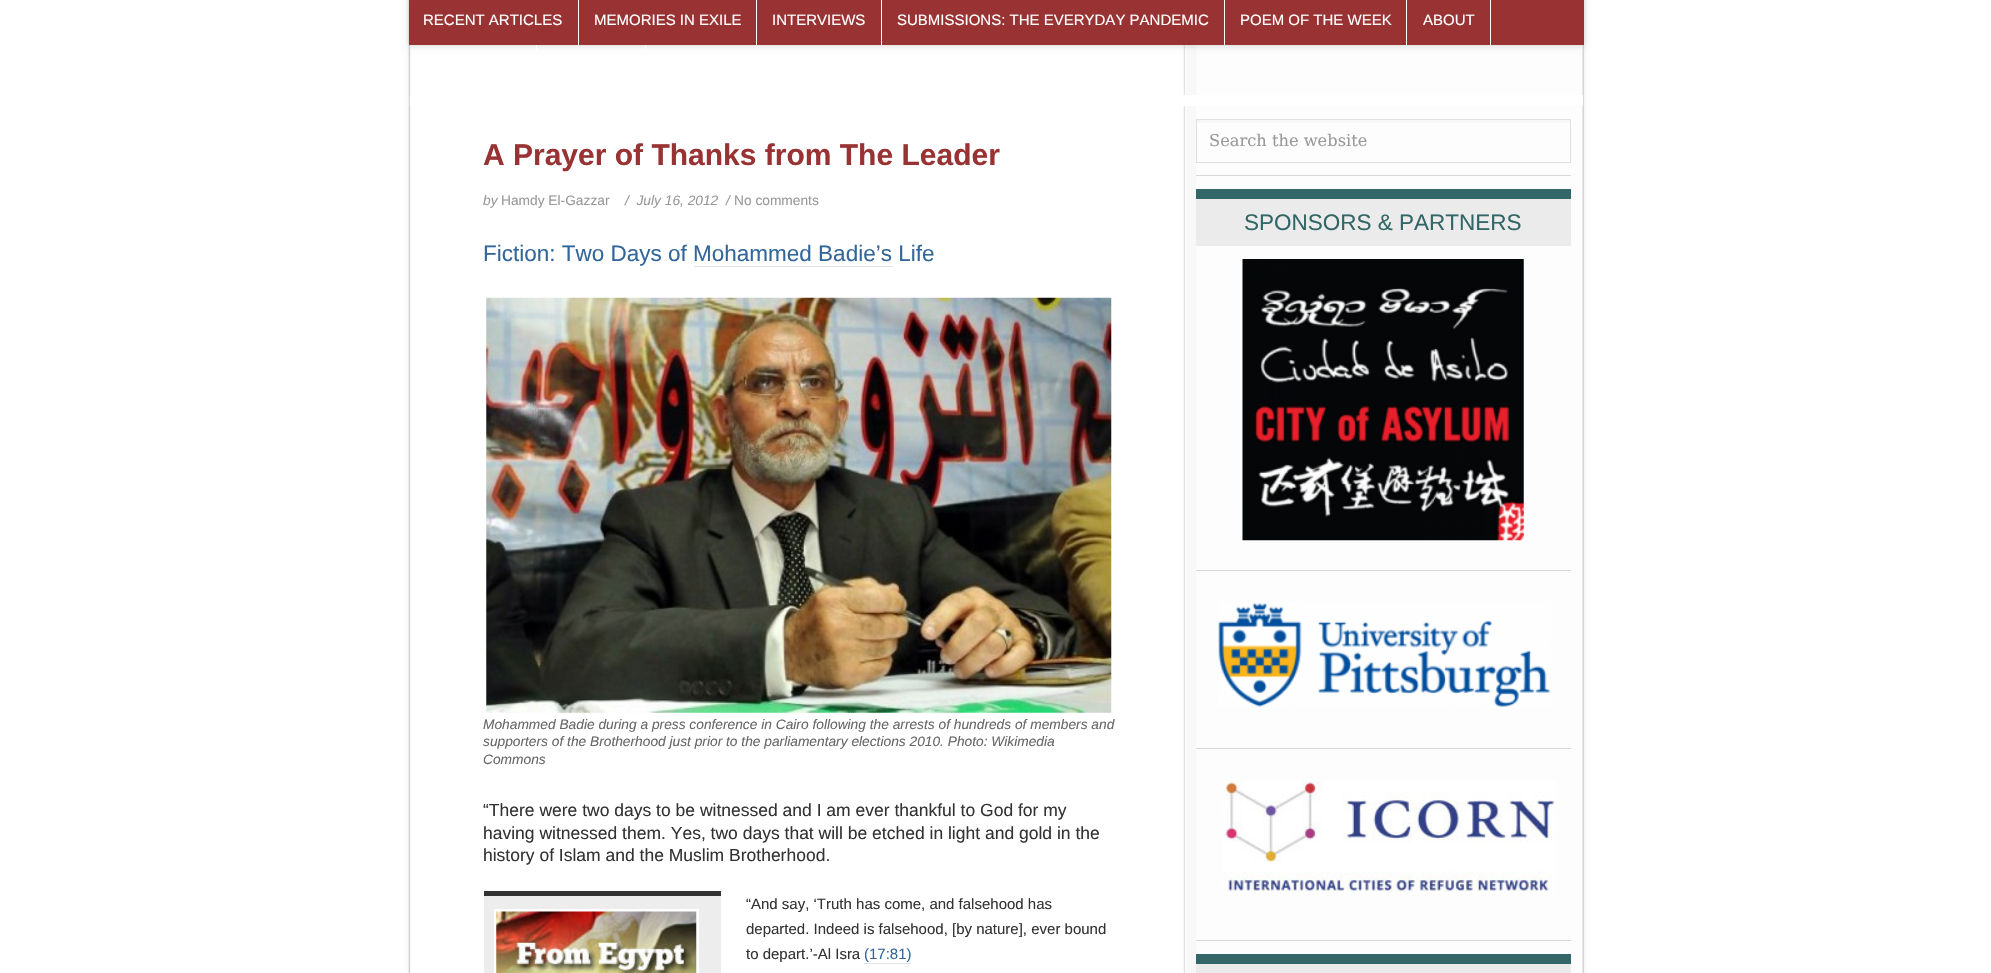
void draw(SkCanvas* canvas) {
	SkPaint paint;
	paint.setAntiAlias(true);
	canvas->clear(0xffffffff);
	paint.setColor(0x14000000);
	paint.setMaskFilter(SkMaskFilter::MakeBlur(kNormal_SkBlurStyle, 2.5));
	canvas->drawRect(SkRect::MakeXYWH(409, -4, 1175, 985), paint);
	paint.setMaskFilter(nullptr);
	canvas->drawImageRect(SkImages::DeferredFromEncodedData(SkData::MakeFromFileName("img1.png")), SkRect::MakeXYWH(408, 0, 1176, 973), SkSamplingOptions());
	paint.setColor(0x26000000);
	paint.setMaskFilter(SkMaskFilter::MakeBlur(kNormal_SkBlurStyle, 3));
	canvas->drawRect(SkRect::MakeXYWH(409, -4, 1175, 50), paint);
	paint.setMaskFilter(nullptr);
	paint.setColor(0xff993333);
	canvas->drawRect(SkRect::MakeXYWH(409, 0, 1175, 45), paint);
	paint.setColor(0xffffffff);
	canvas->drawRect(SkRect::MakeXYWH(578, 0, 1, 45), paint);
	SkFont f1(fontMgr->matchFamilyStyle("Liberation Sans", SkFontStyle::Normal()), 15);
	f1.setSubpixel(true);
	canvas->drawString("RECENT ARTICLES", 423, 25, f1, paint);
	canvas->drawRect(SkRect::MakeXYWH(756, 0, 1, 45), paint);
	canvas->drawString("MEMORIES IN EXILE", 594, 25, f1, paint);
	canvas->drawRect(SkRect::MakeXYWH(881, 0, 1, 45), paint);
	canvas->drawString("INTERVIEWS", 772, 25, f1, paint);
	canvas->drawRect(SkRect::MakeXYWH(1224, 0, 1, 45), paint);
	canvas->drawString("SUBMISSIONS: THE EVERYDAY PANDEMIC", 897, 25, f1, paint);
	canvas->drawRect(SkRect::MakeXYWH(1406, 0, 1, 45), paint);
	canvas->drawString("POEM OF THE WEEK", 1240, 25, f1, paint);
	canvas->drawRect(SkRect::MakeXYWH(1490, 0, 1, 45), paint);
	canvas->drawString("ABOUT", 1423, 25, f1, paint);
	canvas->drawRect(SkRect::MakeXYWH(536, 45, 1, 5), paint);
	canvas->drawRect(SkRect::MakeXYWH(645, 45, 1, 5), paint);
	canvas->drawRect(SkRect::MakeXYWH(410, 95, 1173, 11), paint);
	paint.setColor(0xffd7d7d7);
	canvas->drawRect(SkRect::MakeXYWH(409, 95, 1, 11), paint);
	SkFont f2(fontMgr->matchFamilyStyle("Liberation Sans", SkFontStyle::Bold()), 30);
	f2.setSubpixel(true);
	paint.setColor(0xff993333);
	canvas->drawString("A Prayer of Thanks from The Leader", 483, 165, f2, paint);
	SkFont f3(fontMgr->matchFamilyStyle("Liberation Sans", SkFontStyle::Italic()), 13.75);
	f3.setSubpixel(true);
	paint.setColor(0xff999999);
	canvas->drawString("by", 483, 205, f3, paint);
	SkFont f4(fontMgr->matchFamilyStyle("Liberation Sans", SkFontStyle::Normal()), 13.75);
	f4.setSubpixel(true);
	canvas->drawString("Hamdy El-Gazzar", 501, 205, f4, paint);
	canvas->drawString("/  July 16, 2012  /", 625, 205, f3, paint);
	canvas->drawString("No comments", 734, 205, f4, paint);
	SkFont f5(fontMgr->matchFamilyStyle("Liberation Sans", SkFontStyle::Normal()), 22.5);
	f5.setSubpixel(true);
	paint.setColor(0xff336699);
	canvas->drawString("Fiction: Two Days of Mohammed Badie’s Life", 483, 261, f5, paint);
	paint.setColor(0xffe2e2e2);
	canvas->drawRect(SkRect::MakeXYWH(694, 266, 199, 1), paint);
	canvas->drawImageRect(SkImages::DeferredFromEncodedData(SkData::MakeFromFileName("img2.png")), SkRect::MakeXYWH(486, 297, 626, 416), SkSamplingOptions());
	paint.setColor(0xff666666);
	canvas->drawString("Mohammed Badie during a press conference in Cairo following the arrests of hundreds of members and", 483, 729, f3, paint);
	canvas->drawString("supporters of the Brotherhood just prior to the parliamentary elections 2010. Photo: Wikimedia", 483, 746, f3, paint);
	canvas->drawString("Commons", 483, 764, f3, paint);
	SkFont f6(fontMgr->matchFamilyStyle("Liberation Sans", SkFontStyle::Normal()), 17.5);
	f6.setSubpixel(true);
	paint.setColor(0xff333333);
	canvas->drawString("“There were two days to be witnessed and I am ever thankful to God for my", 483, 816, f6, paint);
	canvas->drawString("having witnessed them. Yes, two days that will be etched in light and gold in the", 483, 839, f6, paint);
	canvas->drawString("history of Islam and the Muslim Brotherhood.", 483, 861, f6, paint);
	paint.setColor(0xffededed);
	canvas->drawRect(SkRect::MakeXYWH(484, 896, 237, 77), paint);
	paint.setColor(0xff333333);
	canvas->drawRect(SkRect::MakeXYWH(484, 891, 237, 5), paint);
	paint.setColor(0xffffffff);
	canvas->drawRect(SkRect::MakeXYWH(494, 909, 205, 64), paint);
	canvas->drawImageRect(SkImages::DeferredFromEncodedData(SkData::MakeFromFileName("img3.png")), SkRect::MakeXYWH(496, 911, 201, 62), SkSamplingOptions());
	paint.setColor(0xff333333);
	canvas->drawString("“And say, ‘Truth has come, and falsehood has", 746, 909, f1, paint);
	canvas->drawString("departed. Indeed is falsehood, [by nature], ever bound", 746, 934, f1, paint);
	canvas->drawString("to depart.’-Al Isra", 746, 959, f1, paint);
	paint.setColor(0xff336699);
	canvas->drawString("(17:81)", 864, 959, f1, paint);
	paint.setColor(0xffe2e2e2);
	canvas->drawRect(SkRect::MakeXYWH(864, 963, 47, 1), paint);
	paint.setColor(0xffd7d7d7);
	canvas->drawRect(SkRect::MakeXYWH(1196, 175, 375, 1), paint);
	paint.setColor(0xfff7f7f7);
	canvas->drawRect(SkRect::MakeXYWH(1196, 120, 375, 3), paint);
	paint.setStroke(true);
	paint.setStrokeWidth(1);
	paint.setColor(0xffe0e0e0);
	canvas->drawRect(SkRect::MakeXYWH(1196.5, 119.5, 374, 43), paint);
	SkFont f7(fontMgr->matchFamilyStyle("DejaVu Serif", SkFontStyle::Normal()), 16.25);
	f7.setSubpixel(true);
	paint.setStroke(false);
	paint.setColor(0xff999999);
	canvas->drawString("Search the website", 1209, 146, f7, paint);
	paint.setColor(0xffd7d7d7);
	canvas->drawRect(SkRect::MakeXYWH(1196, 570, 375, 1), paint);
	paint.setColor(0xffebebeb);
	canvas->drawRect(SkRect::MakeXYWH(1196, 199, 375, 47), paint);
	paint.setColor(0xff336666);
	canvas->drawRect(SkRect::MakeXYWH(1196, 189, 375, 10), paint);
	canvas->drawString("SPONSORS & PARTNERS", 1244, 230, f5, paint);
	canvas->drawImageRect(SkImages::DeferredFromEncodedData(SkData::MakeFromFileName("img4.png")), SkRect::MakeXYWH(1242, 259, 282, 282), SkSamplingOptions());
	paint.setColor(0xffd7d7d7);
	canvas->drawRect(SkRect::MakeXYWH(1196, 748, 375, 1), paint);
	canvas->drawImageRect(SkImages::DeferredFromEncodedData(SkData::MakeFromFileName("img5.png")), SkRect::MakeXYWH(1218, 602, 333, 105), SkSamplingOptions());
	canvas->drawRect(SkRect::MakeXYWH(1196, 940, 375, 1), paint);
	canvas->drawImageRect(SkImages::DeferredFromEncodedData(SkData::MakeFromFileName("img6.png")), SkRect::MakeXYWH(1222, 781, 333, 111), SkSamplingOptions());
	paint.setColor(0xffebebeb);
	canvas->drawRect(SkRect::MakeXYWH(1196, 964, 375, 9), paint);
	paint.setColor(0xff336666);
	canvas->drawRect(SkRect::MakeXYWH(1196, 954, 375, 10), paint);
}
